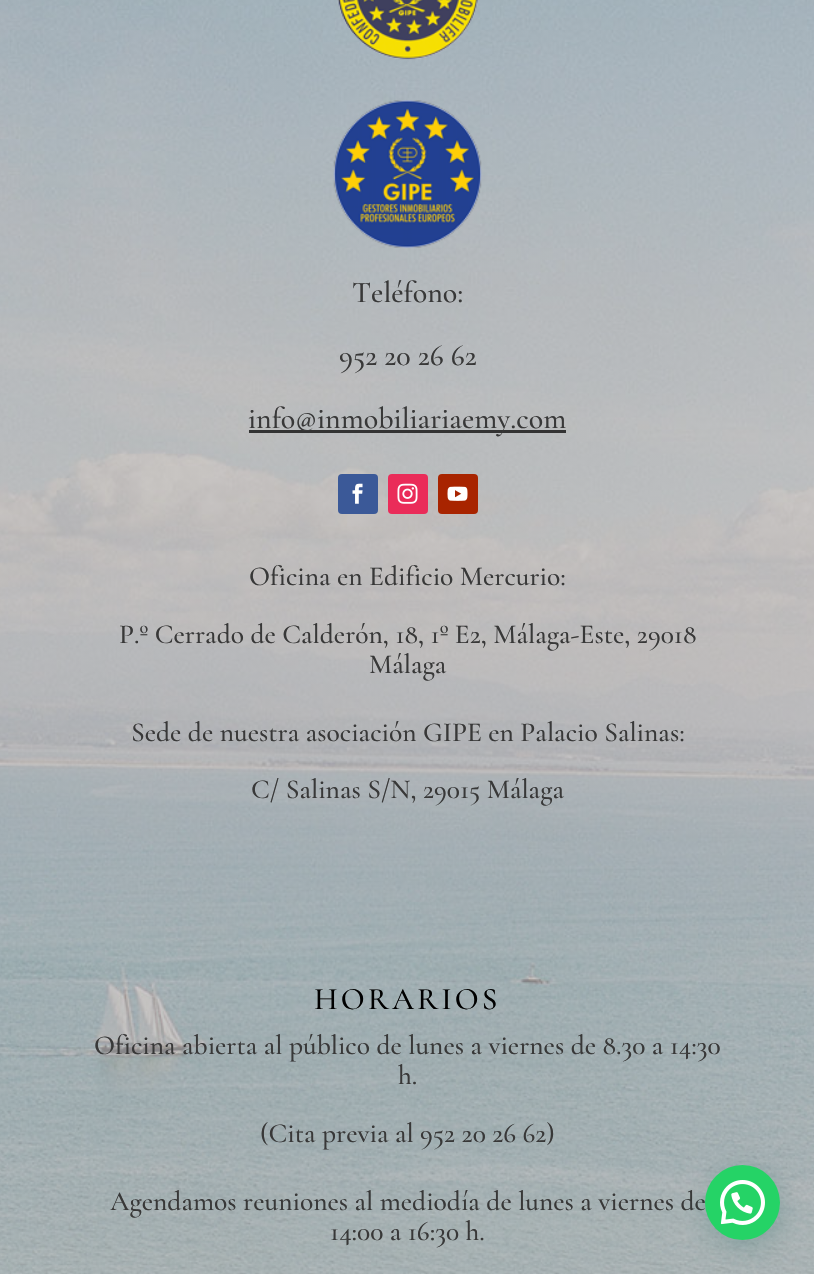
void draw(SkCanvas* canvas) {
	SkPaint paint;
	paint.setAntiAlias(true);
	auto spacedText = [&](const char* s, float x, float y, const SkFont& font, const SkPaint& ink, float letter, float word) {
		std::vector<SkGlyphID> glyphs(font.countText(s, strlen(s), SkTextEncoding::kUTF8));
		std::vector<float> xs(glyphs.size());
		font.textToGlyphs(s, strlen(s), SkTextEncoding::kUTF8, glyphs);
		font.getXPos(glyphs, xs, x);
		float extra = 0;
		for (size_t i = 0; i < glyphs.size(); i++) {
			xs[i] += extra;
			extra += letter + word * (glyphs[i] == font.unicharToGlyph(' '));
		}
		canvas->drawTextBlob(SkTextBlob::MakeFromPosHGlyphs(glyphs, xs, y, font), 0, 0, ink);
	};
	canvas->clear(0xffffffff);
	canvas->drawImageRect(SkImages::DeferredFromEncodedData(SkData::MakeFromFileName("img1.png")), SkRect::MakeXYWH(0, 0, 814, 1274), SkSamplingOptions());
	canvas->drawImageRect(SkImages::DeferredFromEncodedData(SkData::MakeFromFileName("img2.png")), SkRect::MakeXYWH(337, 0, 141, 60), SkSamplingOptions());
	canvas->drawImageRect(SkImages::DeferredFromEncodedData(SkData::MakeFromFileName("img3.png")), SkRect::MakeXYWH(333, 100, 149, 148), SkSamplingOptions());
	SkFont f1(fontMgr->matchFamilyStyle("Cormorant Garamond", SkFontStyle(500, SkFontStyle::kNormal_Width, SkFontStyle::kUpright_Slant)), 30);
	f1.setSubpixel(true);
	paint.setColor(0xff383838);
	canvas->drawString("Teléfono:", 352, 302, f1, paint);
	canvas->drawString("952 20 26 62", 339, 365, f1, paint);
	paint.setColor(0xff333333);
	canvas->drawRect(SkRect::MakeXYWH(249, 430, 317, 3), paint);
	paint.setColor(0xff383838);
	canvas->drawString("info@inmobiliariaemy.com", 248, 428, f1, paint);
	paint.setColor(0xff3b5998);
	canvas->drawRoundRect(SkRect::MakeXYWH(338, 474, 40, 40), 4, 4, paint);
	canvas->drawImageRect(SkImages::DeferredFromEncodedData(SkData::MakeFromFileName("img4.png")), SkRect::MakeXYWH(352, 483, 11, 21), SkSamplingOptions());
	paint.setColor(0xffea2c59);
	canvas->drawRoundRect(SkRect::MakeXYWH(388, 474, 40, 40), 4, 4, paint);
	canvas->drawImageRect(SkImages::DeferredFromEncodedData(SkData::MakeFromFileName("img5.png")), SkRect::MakeXYWH(397, 483, 21, 21), SkSamplingOptions());
	paint.setColor(0xffa82400);
	canvas->drawRoundRect(SkRect::MakeXYWH(438, 474, 40, 40), 4, 4, paint);
	canvas->drawImageRect(SkImages::DeferredFromEncodedData(SkData::MakeFromFileName("img6.png")), SkRect::MakeXYWH(447, 486, 21, 15), SkSamplingOptions());
	SkFont f2(fontMgr->matchFamilyStyle("Cormorant Garamond", SkFontStyle(500, SkFontStyle::kNormal_Width, SkFontStyle::kUpright_Slant)), 27.5);
	f2.setSubpixel(true);
	paint.setColor(0xff383838);
	canvas->drawString("Oficina en Edificio Mercurio:", 249, 585, f2, paint);
	canvas->drawString("P.º Cerrado de Calderón, 18, 1º E2, Málaga-Este, 29018", 119, 643, f2, paint);
	canvas->drawString("Málaga", 369, 673, f2, paint);
	canvas->drawString("Sede de nuestra asociación GIPE en Palacio Salinas:", 131, 741, f2, paint);
	canvas->drawString("C/ Salinas S/N, 29015 Málaga", 251, 798, f2, paint);
	SkFont f3(fontMgr->matchFamilyStyle("Cormorant Garamond", SkFontStyle(500, SkFontStyle::kNormal_Width, SkFontStyle::kUpright_Slant)), 31.25);
	f3.setSubpixel(true);
	paint.setColor(0xff000000);
	spacedText("HORARIOS", 314, 1009, f3, paint, 3, 0);
	paint.setColor(0xff383838);
	canvas->drawString("Oficina abierta al público de lunes a viernes de 8.30 a 14:30", 94, 1054, f2, paint);
	canvas->drawString("h.", 398, 1084, f2, paint);
	canvas->drawString("(Cita previa al 952 20 26 62)", 260, 1142, f2, paint);
	canvas->drawString("Agendamos reuniones al mediodía de lunes a viernes de", 110, 1210, f2, paint);
	canvas->drawString("14:00 a 16:30 h.", 330, 1240, f2, paint);
	paint.setColor(0x3d075e54);
	paint.setMaskFilter(SkMaskFilter::MakeBlur(kNormal_SkBlurStyle, 15));
	canvas->drawRoundRect(SkRect::MakeXYWH(706, 1173, 75, 75), 37.5, 37.5, paint);
	paint.setMaskFilter(nullptr);
	paint.setColor(0xff25d366);
	canvas->drawCircle(742.5, 1202.5, 37.5, paint);
	canvas->drawImageRect(SkImages::DeferredFromEncodedData(SkData::MakeFromFileName("img7.png")), SkRect::MakeXYWH(720, 1180, 45, 45), SkSamplingOptions());
}
